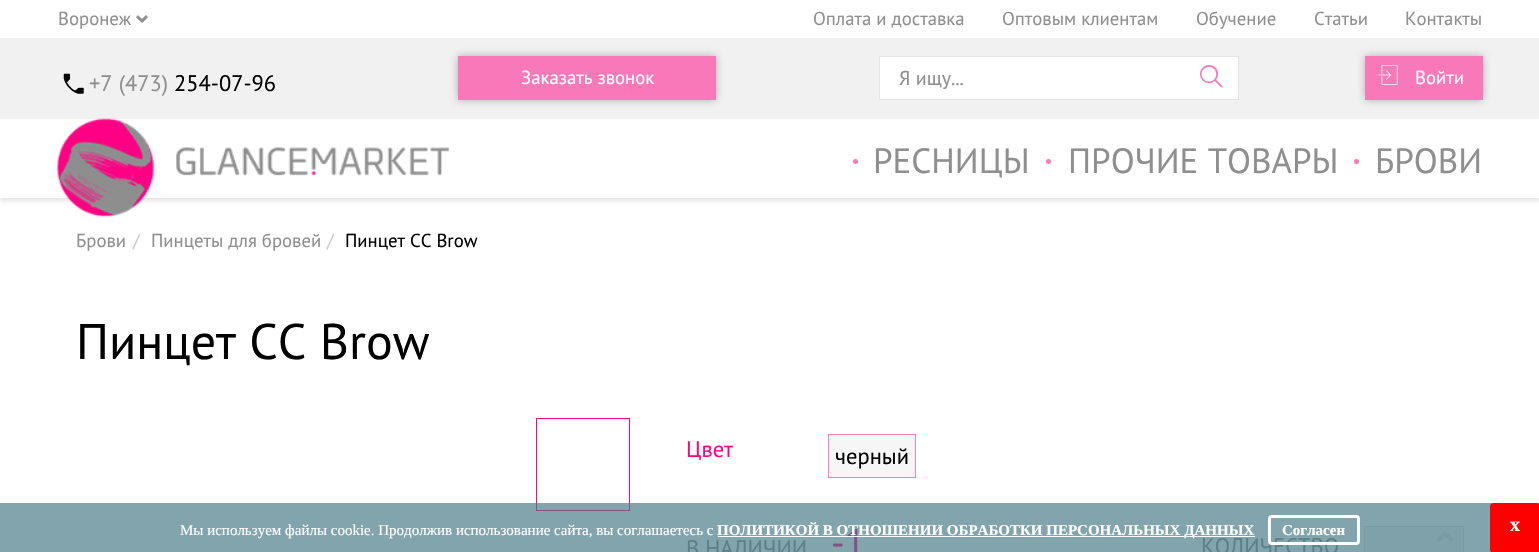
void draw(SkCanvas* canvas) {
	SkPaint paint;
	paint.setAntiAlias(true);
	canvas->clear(0xffffffff);
	SkFont f1(fontMgr->matchFamilyStyle("PT Sans", SkFontStyle::Normal()), 18.75);
	f1.setSubpixel(true);
	paint.setColor(0xff8f8f8f);
	canvas->drawString("Воронеж", 58, 25, f1, paint);
	SkFont f2(fontMgr->matchFamilyStyle("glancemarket", SkFontStyle::Normal()), 12);
	f2.setSubpixel(true);
	canvas->drawString("u", 136, 25, f2, paint);
	canvas->drawString("Оплата и доставка", 813, 25, f1, paint);
	canvas->drawString("Оптовым клиентам", 1002, 25, f1, paint);
	canvas->drawString("Обучение", 1196, 25, f1, paint);
	canvas->drawString("Статьи", 1314, 25, f1, paint);
	canvas->drawString("Контакты", 1405, 25, f1, paint);
	paint.setColor(0xfff1f1f1);
	canvas->drawRect(SkRect::MakeXYWH(0, 38, 1539, 81), paint);
	canvas->drawImageRect(SkImages::DeferredFromEncodedData(SkData::MakeFromFileName("img1.png")), SkRect::MakeXYWH(63, 73, 21, 21), SkSamplingOptions());
	SkFont f3(fontMgr->matchFamilyStyle("PT Sans", SkFontStyle::Normal()), 22.5);
	f3.setSubpixel(true);
	paint.setColor(0xff8f8f8f);
	canvas->drawString("+7 (473)", 89, 91, f3, paint);
	paint.setColor(0xff000000);
	canvas->drawString("254-07-96", 174, 91, f3, paint);
	paint.setColor(0xb38f8f8f);
	paint.setMaskFilter(SkMaskFilter::MakeBlur(kNormal_SkBlurStyle, 4));
	canvas->drawRect(SkRect::MakeXYWH(458, 56, 258, 44), paint);
	paint.setMaskFilter(nullptr);
	paint.setColor(0xfff878ba);
	canvas->drawRect(SkRect::MakeXYWH(458, 56, 258, 44), paint);
	paint.setColor(0xffffffff);
	canvas->drawString("Заказать звонок", 521, 84, f1, paint);
	canvas->drawRect(SkRect::MakeXYWH(880, 57, 358, 42), paint);
	paint.setColor(0xffe4e4e4);
	canvas->drawRect(SkRect::MakeXYWH(879, 56, 360, 1), paint);
	canvas->drawRect(SkRect::MakeXYWH(1238, 56, 1, 44), paint);
	canvas->drawRect(SkRect::MakeXYWH(879, 99, 360, 1), paint);
	canvas->drawImageRect(SkImages::DeferredFromEncodedData(SkData::MakeFromFileName("img2.png")), SkRect::MakeXYWH(1200, 65, 23, 23), SkSamplingOptions());
	canvas->drawRect(SkRect::MakeXYWH(879, 56, 1, 44), paint);
	SkFont f4(fontMgr->matchFamilyStyle("PT Sans", SkFontStyle::Normal()), 20);
	f4.setSubpixel(true);
	paint.setColor(0xff8f8f8f);
	canvas->drawString("Я ищу...", 899, 85, f4, paint);
	paint.setColor(0xb38f8f8f);
	paint.setMaskFilter(SkMaskFilter::MakeBlur(kNormal_SkBlurStyle, 4));
	canvas->drawRect(SkRect::MakeXYWH(1365, 56, 118, 44), paint);
	paint.setMaskFilter(nullptr);
	paint.setColor(0xfff878ba);
	canvas->drawRect(SkRect::MakeXYWH(1365, 56, 118, 44), paint);
	canvas->drawImageRect(SkImages::DeferredFromEncodedData(SkData::MakeFromFileName("img3.png")), SkRect::MakeXYWH(1377, 65, 21, 20), SkSamplingOptions());
	paint.setColor(0xffffffff);
	canvas->drawString("Войти", 1415, 84, f1, paint);
	paint.setColor(0x1a000000);
	paint.setMaskFilter(SkMaskFilter::MakeBlur(kNormal_SkBlurStyle, 2));
	canvas->drawRect(SkRect::MakeXYWH(0, 123, 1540, 78), paint);
	paint.setMaskFilter(nullptr);
	paint.setColor(0xffffffff);
	canvas->drawRect(SkRect::MakeXYWH(0, 120, 1539, 78), paint);
	canvas->drawImageRect(SkImages::DeferredFromEncodedData(SkData::MakeFromFileName("img4.png")), SkRect::MakeXYWH(57, 118, 392, 99), SkSamplingOptions());
	paint.setColor(0xfff878ba);
	canvas->drawCircle(855.5, 161.5, 2.5, paint);
	SkFont f5(fontMgr->matchFamilyStyle("PT Sans", SkFontStyle::Normal()), 35);
	f5.setSubpixel(true);
	paint.setColor(0xff8f8f8f);
	canvas->drawString("РЕСНИЦЫ", 873, 173, f5, paint);
	paint.setColor(0xfff878ba);
	canvas->drawCircle(1048.5, 161.5, 2.5, paint);
	paint.setColor(0xff8f8f8f);
	canvas->drawString("ПРОЧИЕ ТОВАРЫ", 1068, 173, f5, paint);
	paint.setColor(0xfff878ba);
	canvas->drawCircle(1356.5, 161.5, 2.5, paint);
	paint.setColor(0xff8f8f8f);
	canvas->drawString("БРОВИ", 1375, 173, f5, paint);
	canvas->drawString("Брови", 76, 247, f1, paint);
	paint.setColor(0xffcccccc);
	canvas->drawString("/", 133, 247, f1, paint);
	paint.setColor(0xff8f8f8f);
	canvas->drawString("Пинцеты для бровей", 151, 247, f1, paint);
	paint.setColor(0xffcccccc);
	canvas->drawString("/", 327, 247, f1, paint);
	paint.setColor(0xff000000);
	canvas->drawString("Пинцет CC Brow", 345, 247, f1, paint);
	SkFont f6(fontMgr->matchFamilyStyle("PT Sans", SkFontStyle::Normal()), 50);
	f6.setSubpixel(true);
	canvas->drawString("Пинцет CC Brow", 76, 359, f6, paint);
	paint.setStroke(true);
	paint.setStrokeWidth(1);
	paint.setColor(0xffff0385);
	canvas->drawRect(SkRect::MakeXYWH(536.5, 418.5, 93, 92), paint);
	paint.setStroke(false);
	canvas->drawString("Цвет", 686, 457, f3, paint);
	paint.setColor(0xfff6f6f6);
	canvas->drawRect(SkRect::MakeXYWH(828.5, 434.5, 87, 43), paint);
	paint.setStroke(true);
	paint.setColor(0xfff878ba);
	canvas->drawRect(SkRect::MakeXYWH(828.5, 434.5, 87, 43), paint);
	paint.setStroke(false);
	paint.setColor(0xff000000);
	canvas->drawString("черный", 835, 464, f3, paint);
	paint.setColor(0xff8f8f8f);
	canvas->drawString("В НАЛИЧИИ", 686, 556, f3, paint);
	SkFont f7(fontMgr->matchFamilyStyle("PT Sans", SkFontStyle::Normal()), 38);
	f7.setSubpixel(true);
	paint.setColor(0xffff0385);
	canvas->drawString("-1", 831, 556, f7, paint);
	paint.setColor(0xff8f8f8f);
	canvas->drawString("КОЛИЧЕСТВО", 1201, 554, f3, paint);
	paint.setColor(0xfff6f6f6);
	canvas->drawRect(SkRect::MakeXYWH(1364.5, 526.5, 99, 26), paint);
	paint.setStroke(true);
	paint.setColor(0xffe4e4e4);
	canvas->drawRect(SkRect::MakeXYWH(1364.5, 526.5, 99, 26), paint);
	canvas->drawImageRect(SkImages::DeferredFromEncodedData(SkData::MakeFromFileName("img5.png")), SkRect::MakeXYWH(1436, 531, 18, 11), SkSamplingOptions());
	canvas->drawImageRect(SkImages::DeferredFromEncodedData(SkData::MakeFromFileName("img6.png")), SkRect::MakeXYWH(1438, 551, 13, 1), SkSamplingOptions());
	paint.setStroke(false);
	paint.setColor(0xab447884);
	canvas->drawRect(SkRect::MakeXYWH(0, 503, 1539, 49), paint);
	SkFont f8(fontMgr->matchFamilyStyle("Liberation Serif", SkFontStyle::Normal()), 15);
	f8.setSubpixel(true);
	paint.setColor(0xffffffff);
	canvas->drawString("Мы используем файлы cookie. Продолжив использование сайта, вы соглашаетесь с", 180, 535, f8, paint);
	canvas->drawRect(SkRect::MakeXYWH(718, 536, 537, 1), paint);
	SkFont f9(fontMgr->matchFamilyStyle("Liberation Serif", SkFontStyle::Bold()), 15);
	f9.setSubpixel(true);
	canvas->drawString("ПОЛИТИКОЙ В ОТНОШЕНИИ ОБРАБОТКИ ПЕРСОНАЛЬНЫХ ДАННЫХ", 717, 535, f9, paint);
	paint.setStroke(true);
	paint.setStrokeWidth(3);
	canvas->drawRoundRect(SkRect::MakeXYWH(1269.5, 516.5, 89, 27), 2.5, 2.5, paint);
	paint.setStroke(false);
	canvas->drawString("Согласен", 1282, 535, f9, paint);
	paint.setColor(0xffff0000);
	canvas->drawRoundRect(SkRect::MakeXYWH(1490, 503, 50, 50), 4, 4, paint);
	SkFont f10(fontMgr->matchFamilyStyle("Liberation Serif", SkFontStyle::Bold()), 20);
	f10.setSubpixel(true);
	paint.setColor(0xffffffff);
	canvas->drawString("x", 1510, 531, f10, paint);
}
